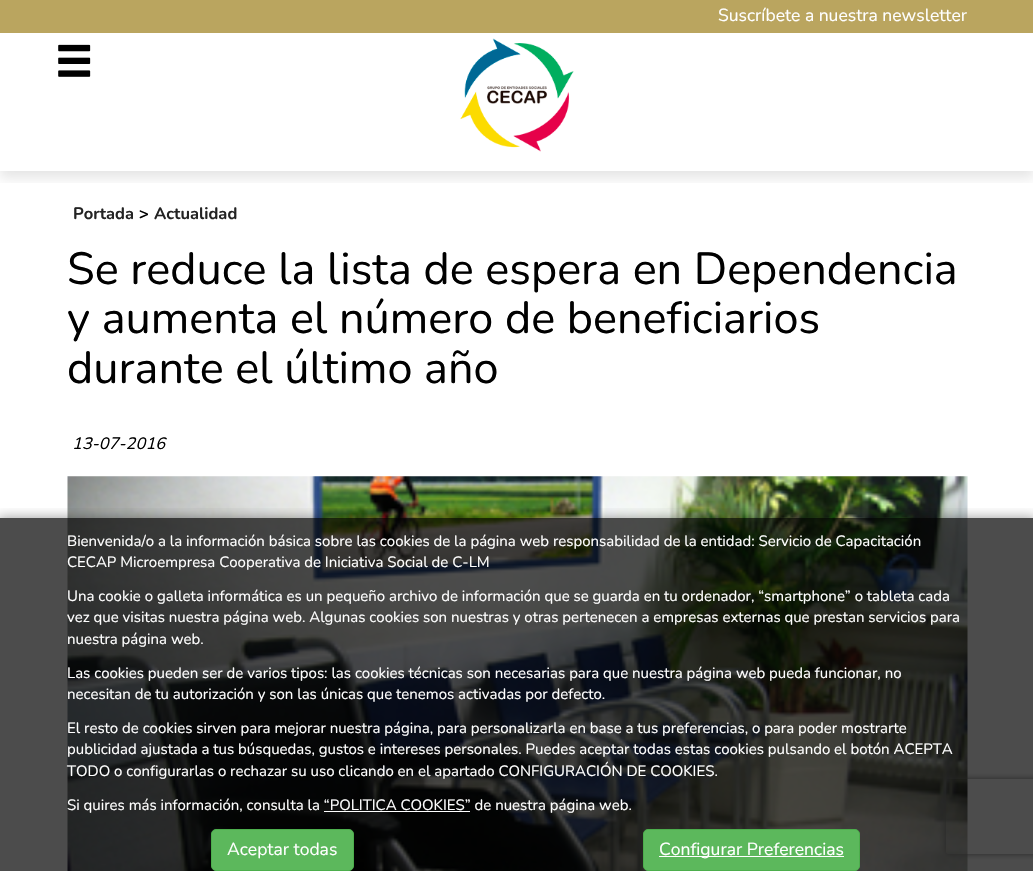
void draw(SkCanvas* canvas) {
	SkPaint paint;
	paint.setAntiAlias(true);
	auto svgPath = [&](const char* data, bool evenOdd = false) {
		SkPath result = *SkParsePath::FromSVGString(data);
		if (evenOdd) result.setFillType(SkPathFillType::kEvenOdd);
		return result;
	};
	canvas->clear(0xffffffff);
	canvas->save();
	canvas->clipRect(SkRect::MakeXYWH(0, 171, 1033, 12));
	paint.setColor(0x1a000000);
	paint.setMaskFilter(SkMaskFilter::MakeBlur(kNormal_SkBlurStyle, 6));
	canvas->drawRect(SkRect::MakeXYWH(0, 6, 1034, 172), paint);
	paint.setMaskFilter(nullptr);
	canvas->restore();
	paint.setColor(0xffbaa55f);
	canvas->drawRect(SkRect::MakeXYWH(0, 0, 1033, 33), paint);
	SkFont f1(fontMgr->matchFamilyStyle("Nunito", SkFontStyle::Normal()), 17.5);
	f1.setSubpixel(true);
	paint.setColor(0xffffffff);
	canvas->drawString("Suscríbete a nuestra newsletter", 718, 21, f1, paint);
	canvas->drawImageRect(SkImages::DeferredFromEncodedData(SkData::MakeFromFileName("img1.png")), SkRect::MakeXYWH(58, 44, 33, 33), SkSamplingOptions());
	canvas->drawImageRect(SkImages::DeferredFromEncodedData(SkData::MakeFromFileName("img2.png")), SkRect::MakeXYWH(460, 38, 114, 114), SkSamplingOptions());
	SkFont f2(fontMgr->matchFamilyStyle("Nunito", SkFontStyle::Bold()), 16.5);
	f2.setSubpixel(true);
	paint.setColor(0xff232323);
	canvas->drawString("Portada", 73, 219, f2, paint);
	paint.setColor(0xff000000);
	canvas->drawString(">", 139, 219, f2, paint);
	paint.setColor(0xff232323);
	canvas->drawString("Actualidad", 154, 219, f2, paint);
	SkFont f3(fontMgr->matchFamilyStyle("Nunito", SkFontStyle::Normal()), 45);
	f3.setSubpixel(true);
	paint.setColor(0xff000000);
	canvas->drawString("Se reduce la lista de espera en Dependencia", 67, 284, f3, paint);
	canvas->drawString("y aumenta el número de beneficiarios", 67, 333, f3, paint);
	canvas->drawString("durante el último año", 67, 383, f3, paint);
	SkFont f4(fontMgr->matchFamilyStyle("Nunito", SkFontStyle::Italic()), 16.5);
	f4.setSubpixel(true);
	canvas->drawString("13-07-2016", 72, 449, f4, paint);
	canvas->drawImageRect(SkImages::DeferredFromEncodedData(SkData::MakeFromFileName("img3.png")), SkRect::MakeXYWH(67, 476, 901, 395), SkSamplingOptions());
	canvas->save();
	canvas->clipRect(SkRect::MakeXYWH(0, 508, 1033, 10));
	paint.setColor(0x66000000);
	paint.setMaskFilter(SkMaskFilter::MakeBlur(kNormal_SkBlurStyle, 6));
	canvas->drawRect(SkRect::MakeXYWH(-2, 518, 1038, 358), paint);
	paint.setMaskFilter(nullptr);
	canvas->restore();
	canvas->save();
	canvas->clipPath(svgPath("M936 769H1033V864H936ZM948.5 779H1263.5C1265 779 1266 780 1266 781.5V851.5C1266 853 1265 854 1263.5 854H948.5C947 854 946 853 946 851.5V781.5C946 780 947 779 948.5 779Z", true), true);
	paint.setColor(0xff808080);
	paint.setMaskFilter(SkMaskFilter::MakeBlur(kNormal_SkBlurStyle, 3));
	canvas->drawRoundRect(SkRect::MakeXYWH(946, 779, 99, 75), 2.5, 2.5, paint);
	paint.setMaskFilter(nullptr);
	canvas->restore();
	paint.setColor(0xb3000000);
	canvas->drawRect(SkRect::MakeXYWH(0, 518, 1033, 353), paint);
	SkFont f5(fontMgr->matchFamilyStyle("Nunito", SkFontStyle::Normal()), 15);
	f5.setSubpixel(true);
	paint.setColor(0xffffffff);
	canvas->drawString("Bienvenida/o a la información básica sobre las cookies de la página web responsabilidad de la entidad: Servicio de Capacitación", 67, 546, f5, paint);
	canvas->drawString("CECAP Microempresa Cooperativa de Iniciativa Social de C-LM", 67, 567, f5, paint);
	canvas->drawString("Una cookie o galleta informática es un pequeño archivo de información que se guarda en tu ordenador, “smartphone” o tableta cada", 67, 601, f5, paint);
	canvas->drawString("vez que visitas nuestra página web. Algunas cookies son nuestras y otras pertenecen a empresas externas que prestan servicios para", 67, 622, f5, paint);
	canvas->drawString("nuestra página web.", 67, 644, f5, paint);
	canvas->drawString("Las cookies pueden ser de varios tipos: las cookies técnicas son necesarias para que nuestra página web pueda funcionar, no", 67, 678, f5, paint);
	canvas->drawString("necesitan de tu autorización y son las únicas que tenemos activadas por defecto.", 67, 699, f5, paint);
	canvas->drawString("El resto de cookies sirven para mejorar nuestra página, para personalizarla en base a tus preferencias, o para poder mostrarte", 67, 733, f5, paint);
	canvas->drawString("publicidad ajustada a tus búsquedas, gustos e intereses personales. Puedes aceptar todas estas cookies pulsando el botón ACEPTA", 67, 754, f5, paint);
	canvas->drawString("TODO o configurarlas o rechazar su uso clicando en el apartado CONFIGURACIÓN DE COOKIES.", 67, 776, f5, paint);
	canvas->drawString("Si quires más información, consulta la “POLITICA COOKIES” de nuestra página web.", 67, 810, f5, paint);
	canvas->drawRect(SkRect::MakeXYWH(324, 811, 146, 1), paint);
	paint.setColor(0xff5cb85c);
	canvas->drawRoundRect(SkRect::MakeXYWH(211.5, 829.5, 142, 41), 4.5, 4.5, paint);
	paint.setStroke(true);
	paint.setStrokeWidth(1);
	paint.setColor(0xff4cae4c);
	canvas->drawRoundRect(SkRect::MakeXYWH(211.5, 829.5, 142, 41), 4.5, 4.5, paint);
	paint.setStroke(false);
	paint.setColor(0xffffffff);
	canvas->drawString("Aceptar todas", 227, 855, f1, paint);
	paint.setColor(0xff5cb85c);
	canvas->drawRoundRect(SkRect::MakeXYWH(643.5, 829.5, 216, 41), 4.5, 4.5, paint);
	paint.setStroke(true);
	paint.setColor(0xff4cae4c);
	canvas->drawRoundRect(SkRect::MakeXYWH(643.5, 829.5, 216, 41), 4.5, 4.5, paint);
	paint.setStroke(false);
	paint.setColor(0xffffffff);
	canvas->drawRect(SkRect::MakeXYWH(659, 856, 185, 1), paint);
	canvas->drawString("Configurar Preferencias", 659, 855, f1, paint);
}
